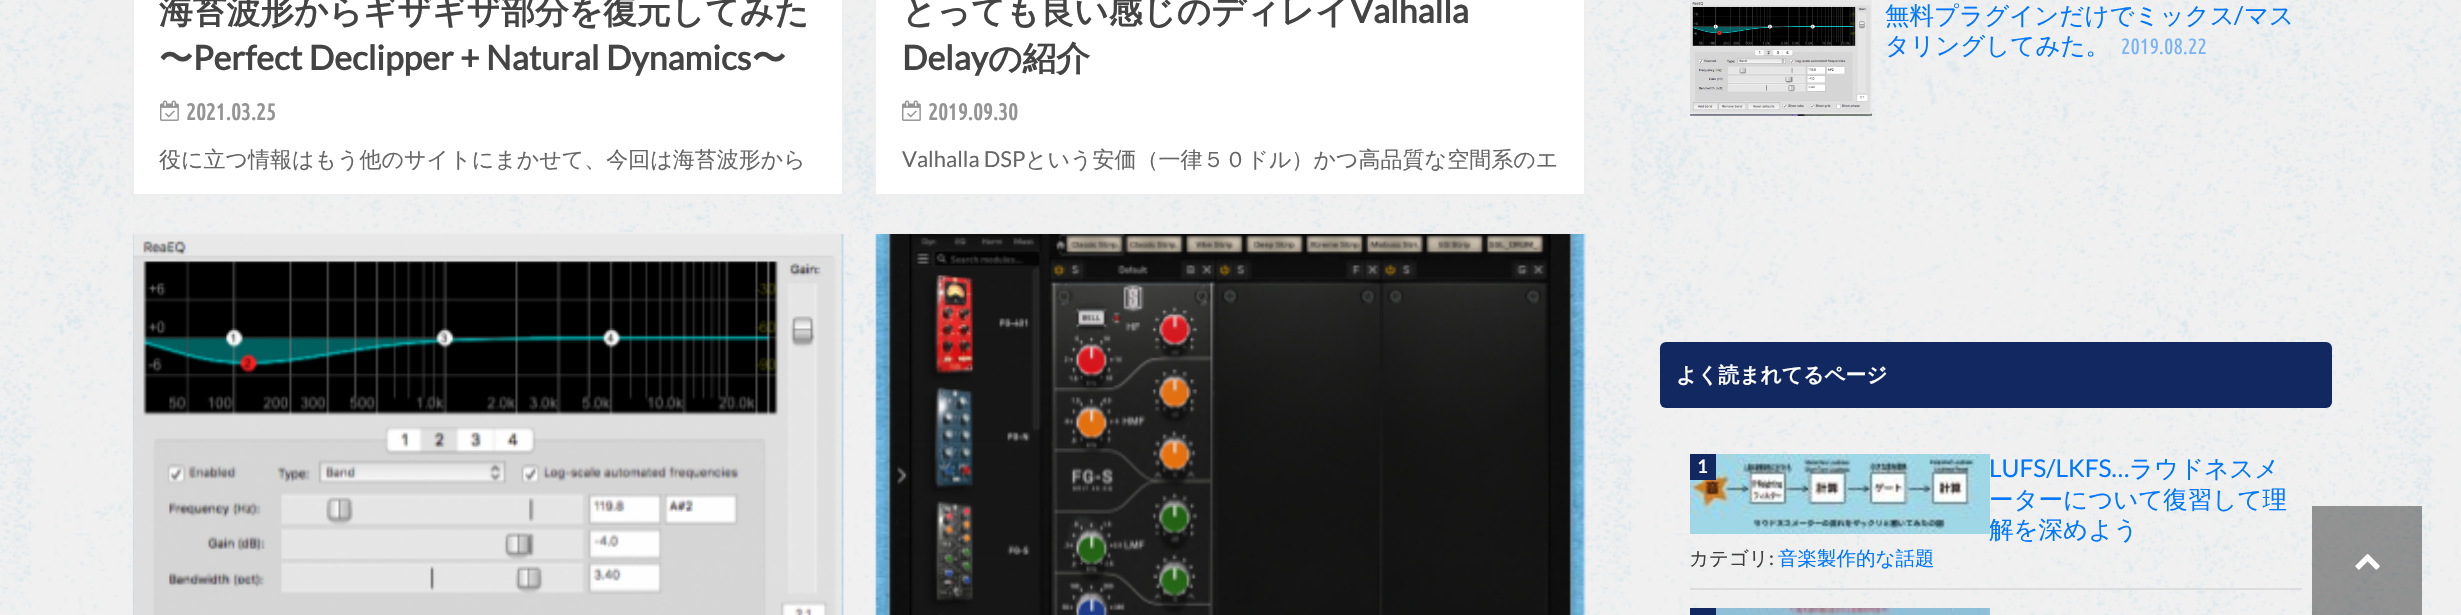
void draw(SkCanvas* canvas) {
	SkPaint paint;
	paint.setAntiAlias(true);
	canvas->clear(0xffffffff);
	canvas->drawImageRect(SkImages::DeferredFromEncodedData(SkData::MakeFromFileName("img1.png")), SkRect::MakeXYWH(0, 0, 2461, 615), SkSamplingOptions());
	paint.setColor(0xffffffff);
	canvas->drawRect(SkRect::MakeXYWH(133, -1, 710, 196), paint);
	paint.setStroke(true);
	paint.setStrokeWidth(2);
	paint.setColor(0xffeeeeee);
	canvas->drawRect(SkRect::MakeXYWH(133, -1, 710, 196), paint);
	SkFont f1(fontMgr->matchFamilyStyle("WenQuanYi Zen Hei", SkFontStyle::Bold()), 33.75);
	f1.setSubpixel(true);
	paint.setStroke(false);
	paint.setColor(0xff444444);
	canvas->drawString("海苔波形からギザギザ部分を復元してみた", 159, 23, f1, paint);
	canvas->drawString("〜", 159, 70, f1, paint);
	SkFont f2(fontMgr->matchFamilyStyle("Lato", SkFontStyle::Bold()), 33.75);
	f2.setSubpixel(true);
	canvas->drawString("Perfect Declipper + Natural Dynamics", 193, 70, f2, paint);
	canvas->drawString("〜", 752, 70, f1, paint);
	canvas->drawImageRect(SkImages::DeferredFromEncodedData(SkData::MakeFromFileName("img2.png")), SkRect::MakeXYWH(160, 100, 19, 21), SkSamplingOptions());
	SkFont f3(fontMgr->matchFamilyStyle("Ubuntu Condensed", SkFontStyle::Bold()), 23);
	f3.setSubpixel(true);
	paint.setColor(0xff949494);
	canvas->drawString("2021.03.25", 186, 120, f3, paint);
	SkFont f4(fontMgr->matchFamilyStyle("WenQuanYi Zen Hei", SkFontStyle(500, SkFontStyle::kNormal_Width, SkFontStyle::kUpright_Slant)), 22);
	f4.setSubpixel(true);
	paint.setColor(0xff666666);
	canvas->drawString("役に立つ情報はもう他のサイトにまかせて、今回は海苔波形から", 159, 167, f4, paint);
	paint.setColor(0xffffffff);
	canvas->drawRect(SkRect::MakeXYWH(875, -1, 710, 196), paint);
	paint.setStroke(true);
	paint.setColor(0xffeeeeee);
	canvas->drawRect(SkRect::MakeXYWH(875, -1, 710, 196), paint);
	paint.setStroke(false);
	paint.setColor(0xff444444);
	canvas->drawString("とっても良い感じのディレイ", 902, 23, f1, paint);
	canvas->drawString("Valhalla", 1350, 23, f2, paint);
	canvas->drawString("Delay", 902, 70, f2, paint);
	canvas->drawString("の紹介", 988, 70, f1, paint);
	canvas->drawImageRect(SkImages::DeferredFromEncodedData(SkData::MakeFromFileName("img2.png")), SkRect::MakeXYWH(902, 100, 19, 21), SkSamplingOptions());
	paint.setColor(0xff949494);
	canvas->drawString("2019.09.30", 928, 120, f3, paint);
	SkFont f5(fontMgr->matchFamilyStyle("Lato", SkFontStyle::Normal()), 22);
	f5.setSubpixel(true);
	paint.setColor(0xff666666);
	canvas->drawString("Valhalla DSP", 902, 167, f5, paint);
	canvas->drawString("という安価（一律５０ドル）かつ高品質な空間系のエ", 1025, 167, f4, paint);
	paint.setStroke(true);
	paint.setColor(0xffeeeeee);
	canvas->drawRect(SkRect::MakeXYWH(133, 233, 710, 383), paint);
	canvas->drawImageRect(SkImages::DeferredFromEncodedData(SkData::MakeFromFileName("img3.png")), SkRect::MakeXYWH(133, 234, 711, 381), SkSamplingOptions());
	canvas->drawImageRect(SkImages::DeferredFromEncodedData(SkData::MakeFromFileName("img4.png")), SkRect::MakeXYWH(134, 234, 708, 381), SkSamplingOptions());
	canvas->drawRect(SkRect::MakeXYWH(875, 233, 710, 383), paint);
	paint.setStroke(false);
	paint.setColor(0xffdcdcdc);
	canvas->drawRect(SkRect::MakeXYWH(876, 234, 708, 381), paint);
	canvas->drawImageRect(SkImages::DeferredFromEncodedData(SkData::MakeFromFileName("img3.png")), SkRect::MakeXYWH(875, 234, 711, 381), SkSamplingOptions());
	canvas->drawImageRect(SkImages::DeferredFromEncodedData(SkData::MakeFromFileName("img5.png")), SkRect::MakeXYWH(883, 234, 694, 381), SkSamplingOptions());
	canvas->drawImageRect(SkImages::DeferredFromEncodedData(SkData::MakeFromFileName("img6.png")), SkRect::MakeXYWH(1690, 0, 182, 116), SkSamplingOptions());
	SkFont f6(fontMgr->matchFamilyStyle("WenQuanYi Zen Hei", SkFontStyle(500, SkFontStyle::kNormal_Width, SkFontStyle::kUpright_Slant)), 24.5);
	f6.setSubpixel(true);
	paint.setColor(0xff0077ff);
	canvas->drawString("無料プラグインだけでミックス", 1885, 24, f6, paint);
	SkFont f7(fontMgr->matchFamilyStyle("Lato", SkFontStyle::Normal()), 24.5);
	f7.setSubpixel(true);
	canvas->drawString("/", 2234, 24, f7, paint);
	canvas->drawString("マス", 2244, 24, f6, paint);
	canvas->drawString("タリングしてみた。", 1885, 54, f6, paint);
	SkFont f8(fontMgr->matchFamilyStyle("Ubuntu Condensed", SkFontStyle::Normal()), 22);
	f8.setSubpixel(true);
	paint.setColor(0xff77b3f7);
	canvas->drawString("2019.08.22", 2121, 54, f8, paint);
	paint.setColor(0xff112960);
	canvas->drawRoundRect(SkRect::MakeXYWH(1660, 342, 672, 66), 6, 6, paint);
	SkFont f9(fontMgr->matchFamilyStyle("WenQuanYi Zen Hei", SkFontStyle::Bold()), 20.75);
	f9.setSubpixel(true);
	paint.setColor(0xffffffff);
	canvas->drawString("よく読まれてるページ", 1676, 382, f9, paint);
	paint.setColor(0xffdddddd);
	canvas->drawRect(SkRect::MakeXYWH(1690, 588, 612, 2), paint);
	paint.setColor(0xff0077ff);
	canvas->drawString("解を深めよう", 1989, 538, f6, paint);
	canvas->drawImageRect(SkImages::DeferredFromEncodedData(SkData::MakeFromFileName("img7.png")), SkRect::MakeXYWH(1690, 454, 300, 80), SkSamplingOptions());
	paint.setColor(0xff112960);
	canvas->drawRect(SkRect::MakeXYWH(1690, 454, 26, 26), paint);
	SkFont f10(fontMgr->matchFamilyStyle("Lato", SkFontStyle::Bold()), 18);
	f10.setSubpixel(true);
	paint.setColor(0xffffffff);
	canvas->drawString("1", 1697, 473, f10, paint);
	paint.setColor(0xff0077ff);
	canvas->drawString("LUFS/LKFS…", 1989, 477, f7, paint);
	canvas->drawString("ラウドネスメ", 2129, 477, f6, paint);
	canvas->drawString("ーターについて復習して理", 1989, 508, f6, paint);
	SkFont f11(fontMgr->matchFamilyStyle("WenQuanYi Zen Hei", SkFontStyle(500, SkFontStyle::kNormal_Width, SkFontStyle::kUpright_Slant)), 19.5);
	f11.setSubpixel(true);
	paint.setColor(0xff3e3e3e);
	canvas->drawString("カテゴリ", 1689, 565, f11, paint);
	SkFont f12(fontMgr->matchFamilyStyle("Lato", SkFontStyle::Normal()), 19.5);
	f12.setSubpixel(true);
	canvas->drawString(":", 1769, 565, f12, paint);
	paint.setColor(0xff0077ff);
	canvas->drawString("音楽製作的な話題", 1778, 565, f11, paint);
	paint.setColor(0xff112960);
	canvas->drawRect(SkRect::MakeXYWH(1690, 608, 26, 7), paint);
	canvas->drawImageRect(SkImages::DeferredFromEncodedData(SkData::MakeFromFileName("img8.png")), SkRect::MakeXYWH(1716, 608, 274, 7), SkSamplingOptions());
	paint.setColor(0x80333333);
	canvas->drawRect(SkRect::MakeXYWH(2312, 506, 110, 109), paint);
	canvas->drawImageRect(SkImages::DeferredFromEncodedData(SkData::MakeFromFileName("img9.png")), SkRect::MakeXYWH(2355, 554, 25, 16), SkSamplingOptions());
}
